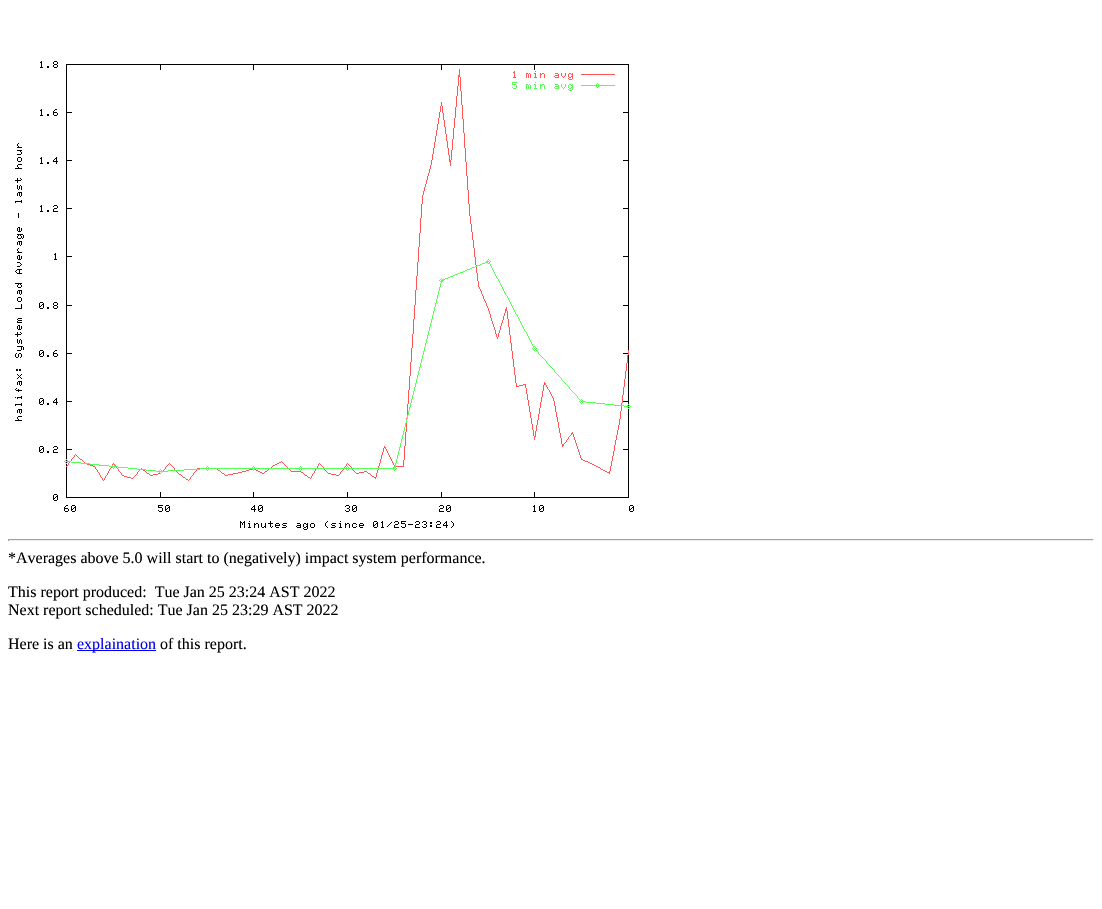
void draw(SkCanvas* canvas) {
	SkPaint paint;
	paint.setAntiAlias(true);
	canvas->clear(0xffffffff);
	canvas->drawImageRect(SkImages::DeferredFromEncodedData(SkData::MakeFromFileName("img1.png")), SkRect::MakeXYWH(15, 61, 619, 469), SkSamplingOptions());
	paint.setColor(0xff9f9f9f);
	canvas->drawRect(SkRect::MakeXYWH(8, 539, 1086, 1), paint);
	paint.setColor(0xffeeeeee);
	canvas->drawRect(SkRect::MakeXYWH(1093, 539, 1, 2), paint);
	canvas->drawRect(SkRect::MakeXYWH(8, 540, 1086, 1), paint);
	paint.setColor(0xff9f9f9f);
	canvas->drawRect(SkRect::MakeXYWH(8, 539, 1, 2), paint);
	SkFont f1(fontMgr->matchFamilyStyle("Liberation Serif", SkFontStyle::Normal()), 16);
	f1.setSubpixel(true);
	paint.setColor(0xff000000);
	canvas->drawString("*Averages above 5.0 will start to (negatively) impact system performance.", 8, 563, f1, paint);
	canvas->drawString("This report produced:  Tue Jan 25 23:24 AST 2022", 8, 597, f1, paint);
	canvas->drawString("Next report scheduled: Tue Jan 25 23:29 AST 2022", 8, 615, f1, paint);
	canvas->drawString("Here is an", 8, 649, f1, paint);
	paint.setColor(0xff0000ee);
	canvas->drawRect(SkRect::MakeXYWH(77, 650, 79, 1), paint);
	canvas->drawString("explaination", 77, 649, f1, paint);
	paint.setColor(0xff000000);
	canvas->drawString("of this report.", 160, 649, f1, paint);
}
